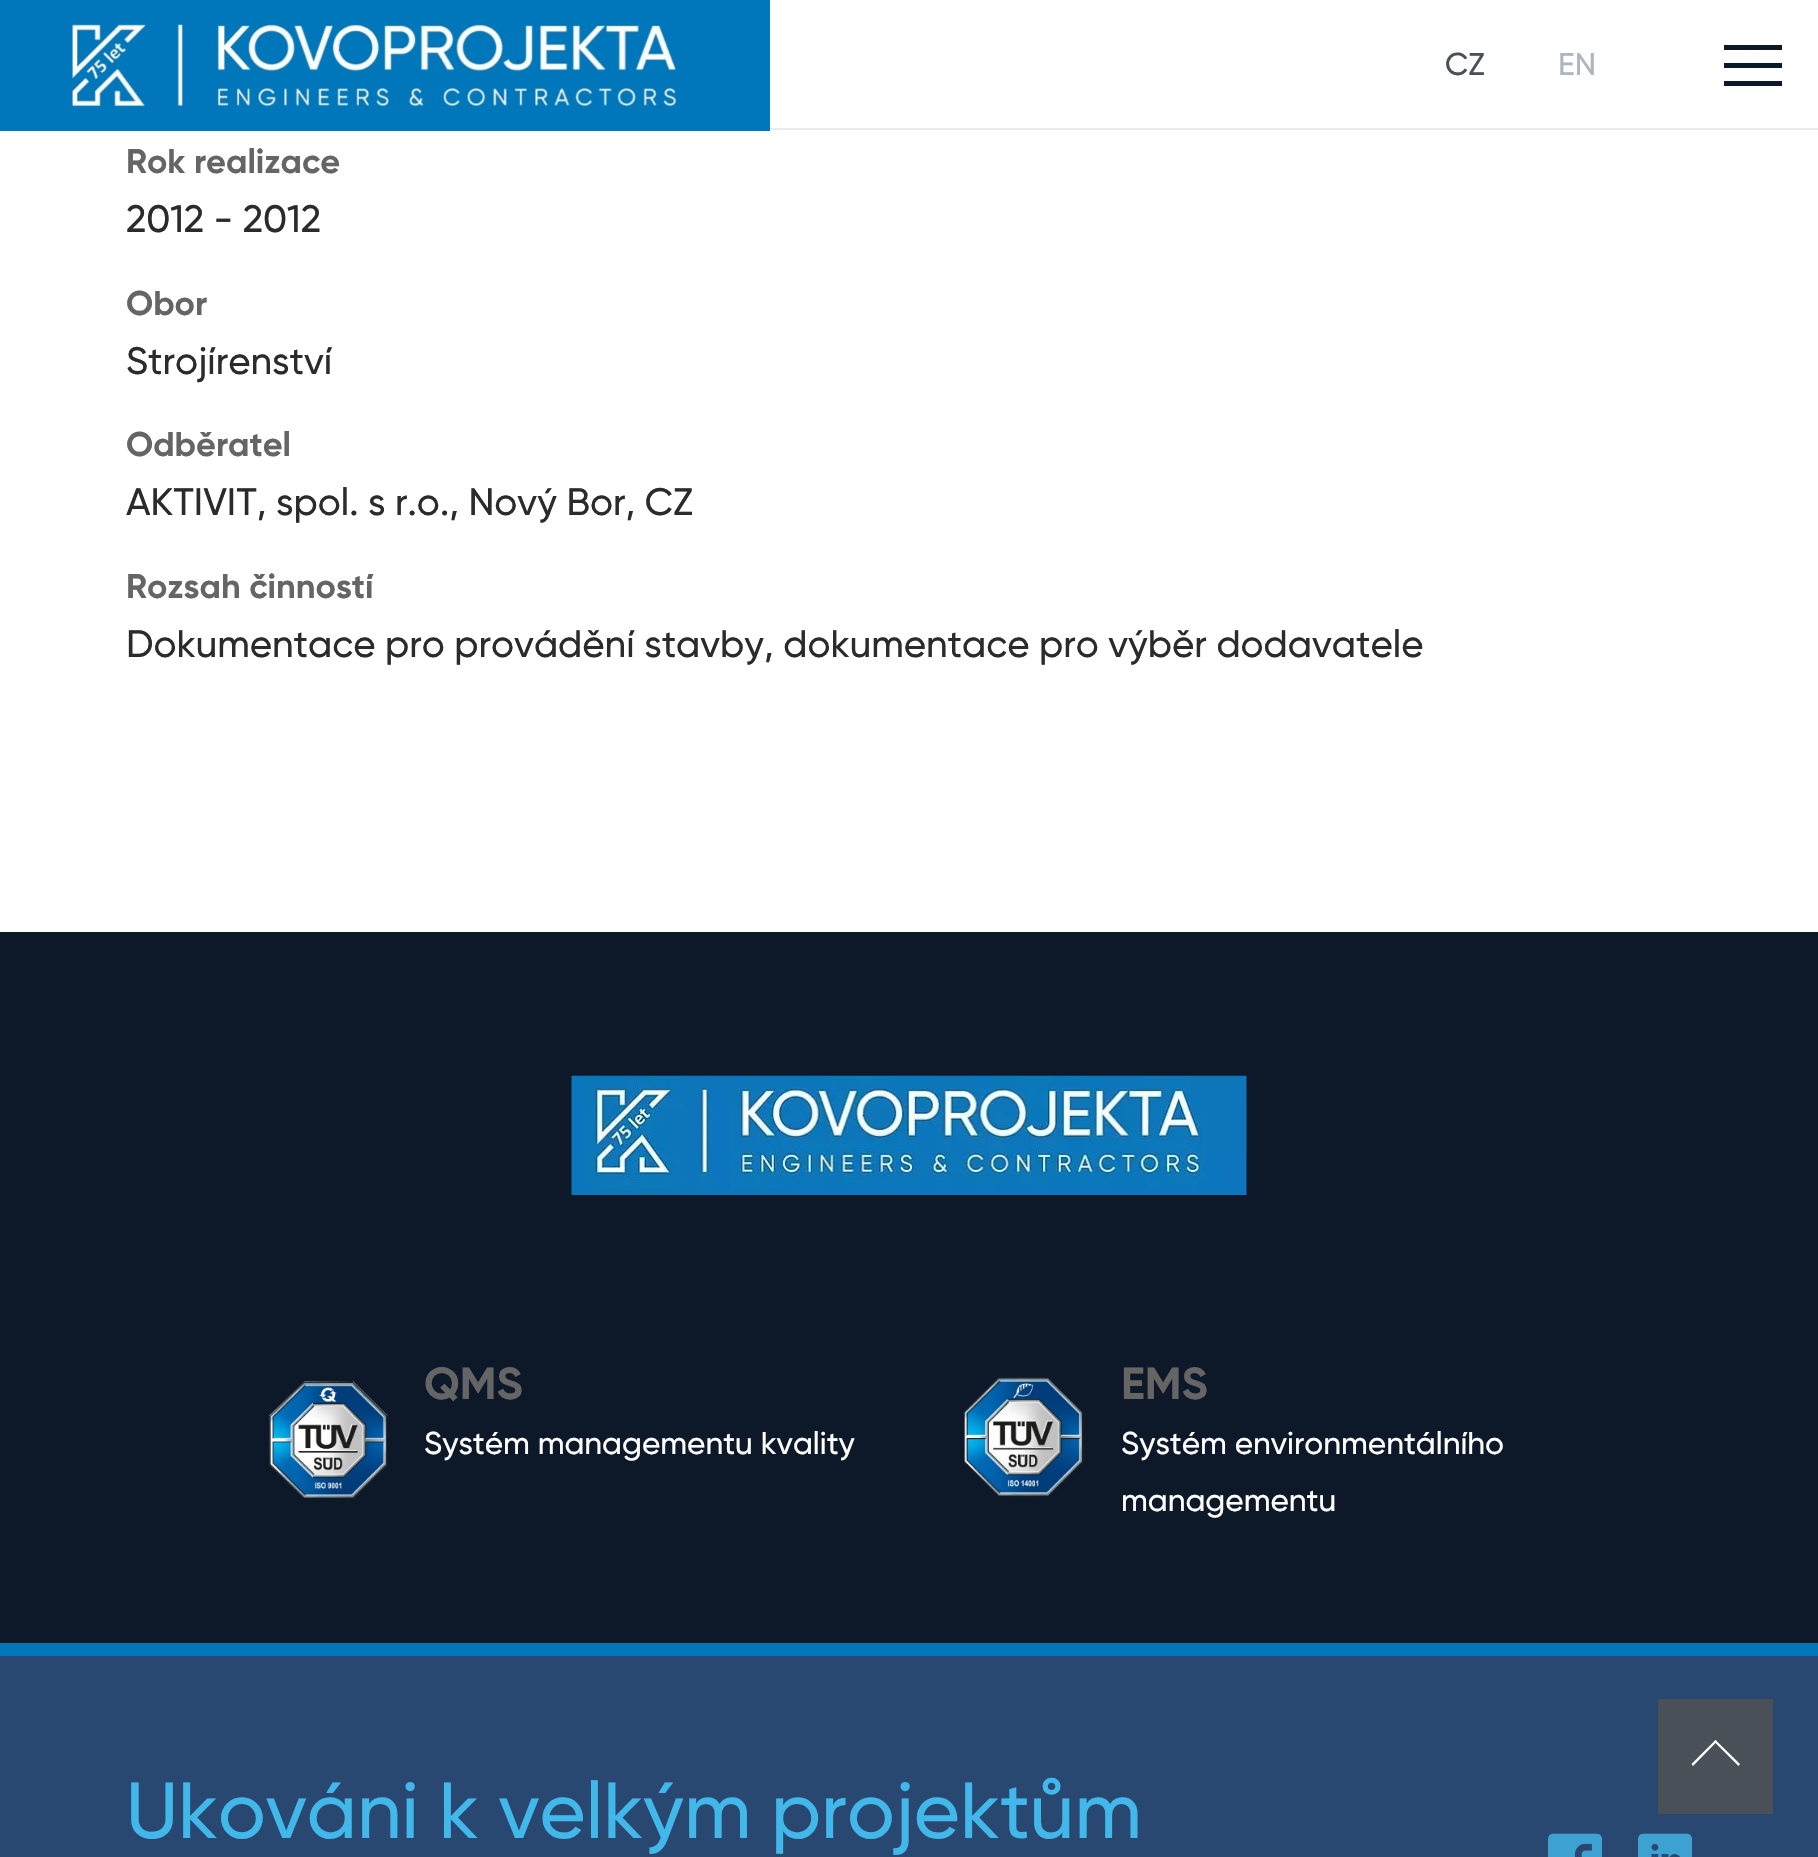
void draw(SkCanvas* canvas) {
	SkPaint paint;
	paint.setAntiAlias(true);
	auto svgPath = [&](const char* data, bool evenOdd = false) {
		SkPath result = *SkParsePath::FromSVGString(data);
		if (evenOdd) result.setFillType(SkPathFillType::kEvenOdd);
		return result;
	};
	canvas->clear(0xffffffff);
	paint.setColor(0xff0077ba);
	canvas->drawRect(SkRect::MakeXYWH(0, 0, 770, 131), paint);
	canvas->drawImageRect(SkImages::DeferredFromEncodedData(SkData::MakeFromFileName("img1.png")), SkRect::MakeXYWH(72, 24, 605, 83), SkSamplingOptions());
	paint.setColor(0xffe9ecef);
	canvas->drawRect(SkRect::MakeXYWH(770, 128, 1048, 2), paint);
	SkFont f1(fontMgr->matchFamilyStyle("Gilroy", SkFontStyle(500, SkFontStyle::kNormal_Width, SkFontStyle::kUpright_Slant)), 31.5);
	f1.setSubpixel(true);
	paint.setColor(0xff495057);
	canvas->drawString("CZ", 1445, 75, f1, paint);
	paint.setColor(0xffadb5bd);
	canvas->drawString("EN", 1558, 75, f1, paint);
	paint.setColor(0xff0d1829);
	canvas->drawRect(SkRect::MakeXYWH(1724, 45, 58, 5), paint);
	canvas->drawRect(SkRect::MakeXYWH(1724, 63, 58, 5), paint);
	canvas->drawRect(SkRect::MakeXYWH(1724, 81, 58, 5), paint);
	SkFont f2(fontMgr->matchFamilyStyle("Gilroy", SkFontStyle::Bold()), 34.25);
	f2.setSubpixel(true);
	paint.setColor(0xff656565);
	canvas->drawString("Rok realizace", 126, 173, f2, paint);
	SkFont f3(fontMgr->matchFamilyStyle("Gilroy", SkFontStyle(500, SkFontStyle::kNormal_Width, SkFontStyle::kUpright_Slant)), 38.25);
	f3.setSubpixel(true);
	paint.setColor(0xff2b2b2b);
	canvas->drawString("2012 - 2012", 126, 232, f3, paint);
	paint.setColor(0xff656565);
	canvas->drawString("Obor", 126, 315, f2, paint);
	paint.setColor(0xff2b2b2b);
	canvas->drawString("Strojírenství", 126, 374, f3, paint);
	paint.setColor(0xff656565);
	canvas->drawString("Odběratel", 126, 456, f2, paint);
	paint.setColor(0xff2b2b2b);
	canvas->drawString("AKTIVIT, spol. s r.o., Nový Bor, CZ", 126, 515, f3, paint);
	paint.setColor(0xff656565);
	canvas->drawString("Rozsah činností", 126, 598, f2, paint);
	paint.setColor(0xff2b2b2b);
	canvas->drawString("Dokumentace pro provádění stavby, dokumentace pro výběr dodavatele", 126, 657, f3, paint);
	paint.setColor(0xff0d1829);
	canvas->drawRect(SkRect::MakeXYWH(0, 932, 1818, 711), paint);
	canvas->drawImageRect(SkImages::DeferredFromEncodedData(SkData::MakeFromFileName("img2.png")), SkRect::MakeXYWH(571, 1075, 676, 120), SkSamplingOptions());
	canvas->drawImageRect(SkImages::DeferredFromEncodedData(SkData::MakeFromFileName("img3.png")), SkRect::MakeXYWH(269, 1380, 119, 119), SkSamplingOptions());
	SkFont f4(fontMgr->matchFamilyStyle("Gilroy", SkFontStyle::Bold()), 45);
	f4.setSubpixel(true);
	paint.setColor(0xff656565);
	canvas->drawString("QMS", 424, 1399, f4, paint);
	paint.setColor(0xffffffff);
	canvas->drawString("Systém managementu kvality", 424, 1454, f1, paint);
	canvas->drawImageRect(SkImages::DeferredFromEncodedData(SkData::MakeFromFileName("img4.png")), SkRect::MakeXYWH(964, 1377, 120, 120), SkSamplingOptions());
	paint.setColor(0xff656565);
	canvas->drawString("EMS", 1121, 1399, f4, paint);
	paint.setColor(0xffffffff);
	canvas->drawString("Systém environmentálního", 1121, 1454, f1, paint);
	canvas->drawString("managementu", 1121, 1511, f1, paint);
	paint.setColor(0xff284771);
	canvas->drawRect(SkRect::MakeXYWH(0, 1656, 1818, 201), paint);
	paint.setColor(0xff0077ba);
	canvas->drawRect(SkRect::MakeXYWH(0, 1643, 1818, 13), paint);
	SkFont f5(fontMgr->matchFamilyStyle("Gilroy", SkFontStyle(500, SkFontStyle::kNormal_Width, SkFontStyle::kUpright_Slant)), 79.25);
	f5.setSubpixel(true);
	paint.setColor(0xff42b7e9);
	canvas->drawString("Ukováni k velkým projektům", 126, 1838, f5, paint);
	canvas->drawImageRect(SkImages::DeferredFromEncodedData(SkData::MakeFromFileName("img5.png")), SkRect::MakeXYWH(1548, 1833, 54, 24), SkSamplingOptions());
	canvas->drawImageRect(SkImages::DeferredFromEncodedData(SkData::MakeFromFileName("img6.png")), SkRect::MakeXYWH(1638, 1833, 54, 24), SkSamplingOptions());
	paint.setColor(0xff495057);
	canvas->drawRect(SkRect::MakeXYWH(1658, 1699, 115, 115), paint);
	paint.setColor(0xffffffff);
	canvas->drawPath(svgPath("M1715.5 1740L1740 1764L1738.5 1766L1714 1741.5Z"), paint);
	canvas->drawPath(svgPath("M1715.5 1740L1717 1741.5L1693 1766L1691.5 1764Z"), paint);
}
